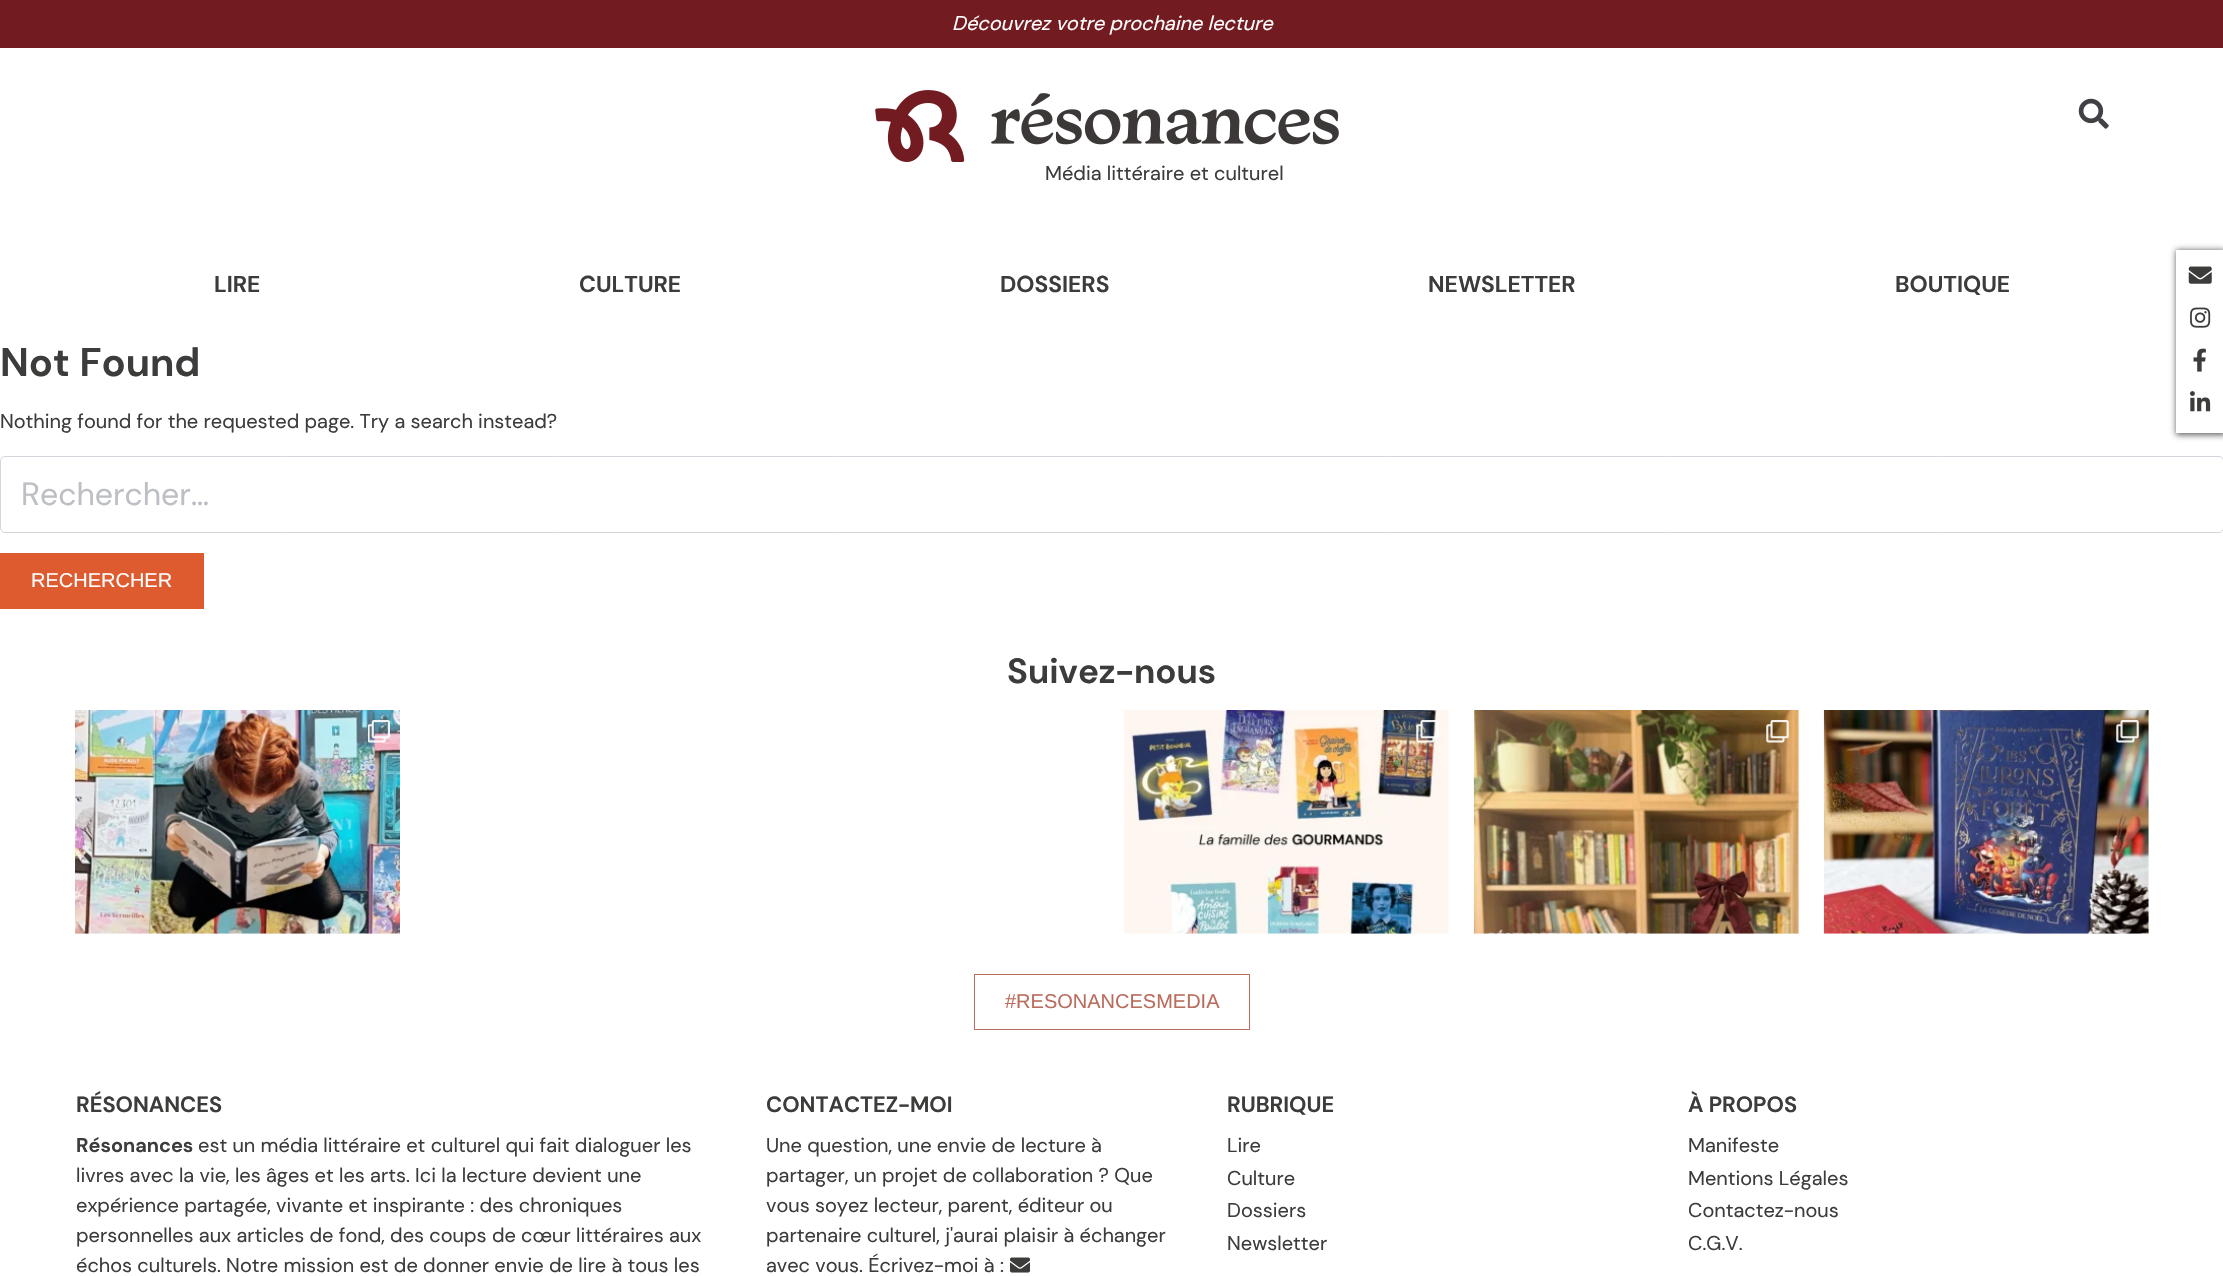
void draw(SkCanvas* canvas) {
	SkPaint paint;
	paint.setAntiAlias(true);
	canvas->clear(0xffffffff);
	paint.setColor(0xff721b21);
	canvas->drawRect(SkRect::MakeXYWH(0, 0, 2223, 48), paint);
	SkFont f1(fontMgr->matchFamilyStyle("DM Sans", SkFontStyle::Italic()), 20);
	f1.setSubpixel(true);
	paint.setColor(0xffffffff);
	canvas->drawString("Découvrez votre prochaine lecture", 952, 30, f1, paint);
	canvas->drawImageRect(SkImages::DeferredFromEncodedData(SkData::MakeFromFileName("img1.png")), SkRect::MakeXYWH(2078, 98, 31, 31), SkSamplingOptions());
	canvas->drawImageRect(SkImages::DeferredFromEncodedData(SkData::MakeFromFileName("img2.png")), SkRect::MakeXYWH(875, 90, 464, 72), SkSamplingOptions());
	SkFont f2(fontMgr->matchFamilyStyle("DM Sans", SkFontStyle::Normal()), 20);
	f2.setSubpixel(true);
	paint.setColor(0xff3c3c3b);
	canvas->drawString("Média littéraire et culturel", 1045, 180, f2, paint);
	SkFont f3(fontMgr->matchFamilyStyle("DM Sans", SkFontStyle::Bold()), 23);
	f3.setSubpixel(true);
	canvas->drawString("LIRE", 214, 292, f3, paint);
	canvas->drawString("CULTURE", 579, 292, f3, paint);
	canvas->drawString("DOSSIERS", 1000, 292, f3, paint);
	canvas->drawString("NEWSLETTER", 1428, 292, f3, paint);
	canvas->drawString("BOUTIQUE", 1895, 292, f3, paint);
	paint.setColor(0xff626262);
	paint.setMaskFilter(SkMaskFilter::MakeBlur(kNormal_SkBlurStyle, 3));
	canvas->drawRect(SkRect::MakeXYWH(2176, 250, 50, 185), paint);
	paint.setMaskFilter(nullptr);
	paint.setColor(0xffffffff);
	canvas->drawRect(SkRect::MakeXYWH(2176, 250, 47, 183), paint);
	canvas->drawImageRect(SkImages::DeferredFromEncodedData(SkData::MakeFromFileName("img3.png")), SkRect::MakeXYWH(2188, 266, 24, 18), SkSamplingOptions());
	canvas->drawImageRect(SkImages::DeferredFromEncodedData(SkData::MakeFromFileName("img4.png")), SkRect::MakeXYWH(2190, 307, 21, 21), SkSamplingOptions());
	canvas->drawImageRect(SkImages::DeferredFromEncodedData(SkData::MakeFromFileName("img5.png")), SkRect::MakeXYWH(2193, 348, 13, 24), SkSamplingOptions());
	canvas->drawImageRect(SkImages::DeferredFromEncodedData(SkData::MakeFromFileName("img6.png")), SkRect::MakeXYWH(2190, 391, 21, 21), SkSamplingOptions());
	SkFont f4(fontMgr->matchFamilyStyle("DM Sans", SkFontStyle::Bold()), 40);
	f4.setSubpixel(true);
	paint.setColor(0xff3c3c3b);
	canvas->drawString("Not Found", 0, 376, f4, paint);
	canvas->drawString("Nothing found for the requested page. Try a search instead?", 0, 428, f2, paint);
	paint.setStroke(true);
	paint.setStrokeWidth(1);
	paint.setColor(0xffd2d6dd);
	canvas->drawRoundRect(SkRect::MakeXYWH(0.5, 456.5, 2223, 76), 4.5, 4.5, paint);
	SkFont f5(fontMgr->matchFamilyStyle("DM Sans", SkFontStyle::Normal()), 32);
	f5.setSubpixel(true);
	paint.setStroke(false);
	paint.setColor(0xffbdbfc4);
	canvas->drawString("Rechercher…", 21, 505, f5, paint);
	paint.setColor(0xffde5b30);
	canvas->drawRect(SkRect::MakeXYWH(0, 553, 204, 56), paint);
	SkFont f6(fontMgr->matchFamilyStyle("Liberation Sans", SkFontStyle::Normal()), 20);
	f6.setSubpixel(true);
	paint.setColor(0xffffffff);
	canvas->drawString("RECHERCHER", 31, 587, f6, paint);
	SkFont f7(fontMgr->matchFamilyStyle("DM Sans", SkFontStyle::Bold()), 35);
	f7.setSubpixel(true);
	paint.setColor(0xff3c3c3b);
	canvas->drawString("Suivez-nous", 1007, 683, f7, paint);
	canvas->drawImageRect(SkImages::DeferredFromEncodedData(SkData::MakeFromFileName("img7.png")), SkRect::MakeXYWH(75, 710, 325, 224), SkSamplingOptions());
	canvas->drawImageRect(SkImages::DeferredFromEncodedData(SkData::MakeFromFileName("img8.png")), SkRect::MakeXYWH(368, 720, 22, 23), SkSamplingOptions());
	canvas->drawImageRect(SkImages::DeferredFromEncodedData(SkData::MakeFromFileName("img9.png")), SkRect::MakeXYWH(1124, 710, 325, 224), SkSamplingOptions());
	canvas->drawImageRect(SkImages::DeferredFromEncodedData(SkData::MakeFromFileName("img10.png")), SkRect::MakeXYWH(1416, 720, 23, 23), SkSamplingOptions());
	canvas->drawImageRect(SkImages::DeferredFromEncodedData(SkData::MakeFromFileName("img11.png")), SkRect::MakeXYWH(1473, 710, 326, 224), SkSamplingOptions());
	canvas->drawImageRect(SkImages::DeferredFromEncodedData(SkData::MakeFromFileName("img12.png")), SkRect::MakeXYWH(1766, 720, 23, 23), SkSamplingOptions());
	canvas->drawImageRect(SkImages::DeferredFromEncodedData(SkData::MakeFromFileName("img13.png")), SkRect::MakeXYWH(1823, 710, 326, 224), SkSamplingOptions());
	canvas->drawImageRect(SkImages::DeferredFromEncodedData(SkData::MakeFromFileName("img14.png")), SkRect::MakeXYWH(2116, 720, 23, 23), SkSamplingOptions());
	paint.setStroke(true);
	paint.setColor(0xffba6c5d);
	canvas->drawRect(SkRect::MakeXYWH(974.5, 974.5, 275, 55), paint);
	paint.setStroke(false);
	canvas->drawString("#RESONANCESMEDIA", 1005, 1008, f6, paint);
	SkFont f8(fontMgr->matchFamilyStyle("DM Sans", SkFontStyle::Bold()), 22);
	f8.setSubpixel(true);
	paint.setColor(0xff3c3c3b);
	canvas->drawString("RÉSONANCES", 76, 1112, f8, paint);
	SkFont f9(fontMgr->matchFamilyStyle("DM Sans", SkFontStyle::Bold()), 20);
	f9.setSubpixel(true);
	canvas->drawString("Résonances", 76, 1152, f9, paint);
	canvas->drawString("est un média littéraire et culturel qui fait dialoguer les", 198, 1152, f2, paint);
	canvas->drawString("livres avec la vie, les âges et les arts. Ici la lecture devient une", 76, 1182, f2, paint);
	canvas->drawString("expérience partagée, vivante et inspirante : des chroniques", 76, 1212, f2, paint);
	canvas->drawString("personnelles aux articles de fond, des coups de cœur littéraires aux", 76, 1242, f2, paint);
	canvas->drawString("échos culturels. Notre mission est de donner envie de lire à tous les", 76, 1272, f2, paint);
	canvas->drawString("CONTACTEZ-MOI", 766, 1112, f8, paint);
	canvas->drawString("Une question, une envie de lecture à", 766, 1152, f2, paint);
	canvas->drawString("partager, un projet de collaboration ? Que", 766, 1182, f2, paint);
	canvas->drawString("vous soyez lecteur, parent, éditeur ou", 766, 1212, f2, paint);
	canvas->drawString("partenaire culturel, j'aurai plaisir à échanger", 766, 1242, f2, paint);
	canvas->drawString("avec vous. Écrivez-moi à :", 766, 1272, f2, paint);
	canvas->drawImageRect(SkImages::DeferredFromEncodedData(SkData::MakeFromFileName("img15.png")), SkRect::MakeXYWH(1010, 1257, 20, 16), SkSamplingOptions());
	canvas->drawString("RUBRIQUE", 1227, 1112, f8, paint);
	canvas->drawString("Lire", 1227, 1152, f2, paint);
	canvas->drawString("Culture", 1227, 1185, f2, paint);
	canvas->drawString("Dossiers", 1227, 1217, f2, paint);
	canvas->drawString("Newsletter", 1227, 1250, f2, paint);
	canvas->drawString("À PROPOS", 1688, 1112, f8, paint);
	canvas->drawString("Manifeste", 1688, 1152, f2, paint);
	canvas->drawString("Mentions Légales", 1688, 1185, f2, paint);
	canvas->drawString("Contactez-nous", 1688, 1217, f2, paint);
	canvas->drawString("C.G.V.", 1688, 1250, f2, paint);
}
